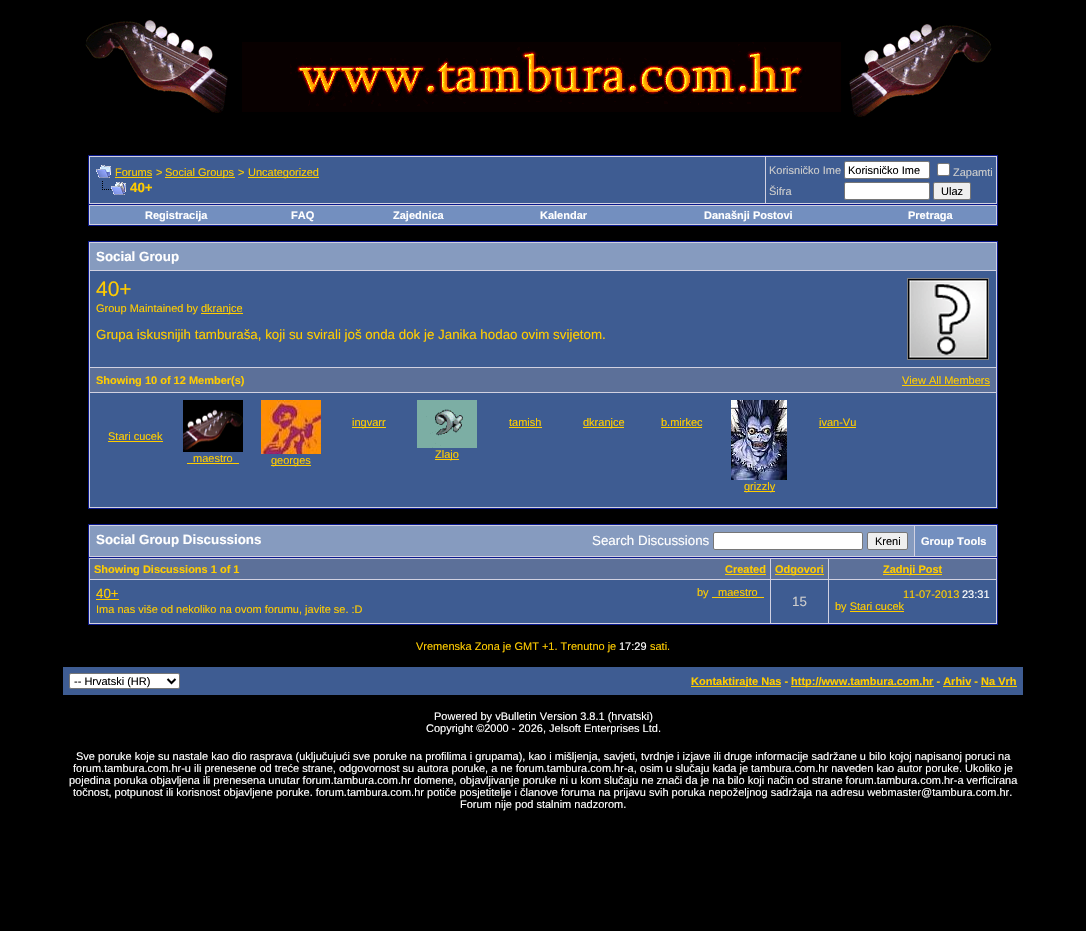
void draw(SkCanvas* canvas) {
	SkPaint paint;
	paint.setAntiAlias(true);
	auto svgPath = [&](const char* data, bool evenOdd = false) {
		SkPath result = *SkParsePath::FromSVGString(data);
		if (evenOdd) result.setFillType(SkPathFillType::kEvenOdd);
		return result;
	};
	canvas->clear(0xff000000);
	canvas->drawImageRect(SkImages::DeferredFromEncodedData(SkData::MakeFromFileName("img1.png")), SkRect::MakeXYWH(85, 20, 907, 97), SkSamplingOptions());
	paint.setColor(0xffd1d1e1);
	canvas->drawRect(SkRect::MakeXYWH(88.5, 155.5, 909, 49), paint);
	paint.setStroke(true);
	paint.setStrokeWidth(1);
	paint.setColor(0xff0b198c);
	canvas->drawRect(SkRect::MakeXYWH(88.5, 155.5, 909, 49), paint);
	paint.setStroke(false);
	paint.setColor(0xff3e5c92);
	canvas->drawRect(SkRect::MakeXYWH(90, 157, 675, 46), paint);
	canvas->drawImageRect(SkImages::DeferredFromEncodedData(SkData::MakeFromFileName("img2.png")), SkRect::MakeXYWH(96, 165, 15, 13), SkSamplingOptions());
	SkFont f1(fontMgr->matchFamilyStyle("Liberation Sans", SkFontStyle::Normal()), 11);
	f1.setSubpixel(true);
	paint.setColor(0xffffcc00);
	canvas->drawString("Forums", 115, 176, f1, paint);
	canvas->drawRect(SkRect::MakeXYWH(115, 177, 37, 1), paint);
	canvas->drawString(">", 156, 176, f1, paint);
	canvas->drawRect(SkRect::MakeXYWH(165, 177, 70, 1), paint);
	canvas->drawString("Social Groups", 165, 176, f1, paint);
	canvas->drawString(">", 238, 176, f1, paint);
	canvas->drawRect(SkRect::MakeXYWH(248, 177, 71, 1), paint);
	canvas->drawString("Uncategorized", 248, 176, f1, paint);
	canvas->drawImageRect(SkImages::DeferredFromEncodedData(SkData::MakeFromFileName("img3.png")), SkRect::MakeXYWH(102, 181, 24, 14), SkSamplingOptions());
	SkFont f2(fontMgr->matchFamilyStyle("Liberation Sans", SkFontStyle::Bold()), 13.35);
	f2.setSubpixel(true);
	canvas->drawString("40+", 130, 192, f2, paint);
	paint.setColor(0xff3e5c92);
	canvas->drawRect(SkRect::MakeXYWH(766, 157, 230, 46), paint);
	paint.setColor(0xffcccccc);
	canvas->drawString("Korisničko Ime", 769, 174, f1, paint);
	paint.setColor(0xffffffff);
	canvas->drawRoundRect(SkRect::MakeXYWH(844.5, 161.5, 85, 17), 1.5, 1.5, paint);
	paint.setStroke(true);
	paint.setColor(0xff767676);
	canvas->drawRoundRect(SkRect::MakeXYWH(844.5, 161.5, 85, 17), 1.5, 1.5, paint);
	paint.setStroke(false);
	paint.setColor(0xff000000);
	canvas->drawString("Korisničko Ime", 848, 174, f1, paint);
	paint.setColor(0xffffffff);
	canvas->drawRoundRect(SkRect::MakeXYWH(937.5, 163.5, 12, 12), 1.5, 1.5, paint);
	paint.setStroke(true);
	paint.setColor(0xff767676);
	canvas->drawRoundRect(SkRect::MakeXYWH(937.5, 163.5, 12, 12), 1.5, 1.5, paint);
	paint.setStroke(false);
	paint.setColor(0xffcccccc);
	canvas->drawString("Zapamti", 953, 176, f1, paint);
	canvas->drawString("Šifra", 769, 195, f1, paint);
	paint.setColor(0xffffffff);
	canvas->drawRoundRect(SkRect::MakeXYWH(844.5, 182.5, 85, 17), 1.5, 1.5, paint);
	paint.setStroke(true);
	paint.setColor(0xff767676);
	canvas->drawRoundRect(SkRect::MakeXYWH(844.5, 182.5, 85, 17), 1.5, 1.5, paint);
	paint.setStroke(false);
	paint.setColor(0xffefefef);
	canvas->drawRoundRect(SkRect::MakeXYWH(933.5, 182.5, 37, 17), 1.5, 1.5, paint);
	paint.setStroke(true);
	paint.setColor(0xff767676);
	canvas->drawRoundRect(SkRect::MakeXYWH(933.5, 182.5, 37, 17), 1.5, 1.5, paint);
	paint.setStroke(false);
	paint.setColor(0xff000000);
	canvas->drawString("Ulaz", 941, 195, f1, paint);
	paint.setColor(0xffd1d1e1);
	canvas->drawRect(SkRect::MakeXYWH(89, 205, 908, 20), paint);
	paint.setColor(0xff0b198c);
	canvas->drawRect(SkRect::MakeXYWH(997, 205, 1, 21), paint);
	canvas->drawRect(SkRect::MakeXYWH(88, 225, 910, 1), paint);
	canvas->drawRect(SkRect::MakeXYWH(88, 205, 1, 21), paint);
	paint.setColor(0xff738fbf);
	canvas->drawRect(SkRect::MakeXYWH(90, 206, 906, 18), paint);
	SkFont f3(fontMgr->matchFamilyStyle("Liberation Sans", SkFontStyle::Bold()), 11);
	f3.setSubpixel(true);
	paint.setColor(0xffffffff);
	canvas->drawString("Registracija", 145, 219, f3, paint);
	canvas->drawString("FAQ", 291, 219, f3, paint);
	canvas->drawString("Zajednica", 393, 219, f3, paint);
	canvas->drawString("Kalendar", 540, 219, f3, paint);
	canvas->drawString("Današnji Postovi", 704, 219, f3, paint);
	canvas->drawString("Pretraga", 908, 219, f3, paint);
	paint.setColor(0xffd1d1e1);
	canvas->drawRect(SkRect::MakeXYWH(88.5, 241.5, 909, 267), paint);
	paint.setStroke(true);
	paint.setColor(0xff0b198c);
	canvas->drawRect(SkRect::MakeXYWH(88.5, 241.5, 909, 267), paint);
	paint.setStroke(false);
	paint.setColor(0xff869bbf);
	canvas->drawRect(SkRect::MakeXYWH(90, 243, 906, 27), paint);
	paint.setColor(0xffffffff);
	canvas->drawString("Social Group", 96, 261, f2, paint);
	paint.setColor(0xff3e5c92);
	canvas->drawRect(SkRect::MakeXYWH(90, 271, 906, 96), paint);
	SkFont f4(fontMgr->matchFamilyStyle("Liberation Sans", SkFontStyle::Normal()), 21);
	f4.setSubpixel(true);
	paint.setColor(0xffffcc00);
	canvas->drawString("40+", 96, 296, f4, paint);
	paint.setStroke(true);
	paint.setColor(0xff808080);
	canvas->drawRect(SkRect::MakeXYWH(907.5, 278.5, 81, 81), paint);
	canvas->drawImageRect(SkImages::DeferredFromEncodedData(SkData::MakeFromFileName("img4.png")), SkRect::MakeXYWH(908, 279, 80, 80), SkSamplingOptions());
	paint.setStroke(false);
	paint.setColor(0xffffcc00);
	canvas->drawString("Group Maintained by", 96, 312, f1, paint);
	canvas->drawRect(SkRect::MakeXYWH(201, 313, 42, 1), paint);
	canvas->drawString("dkranjce", 201, 312, f1, paint);
	SkFont f5(fontMgr->matchFamilyStyle("Liberation Sans", SkFontStyle::Normal()), 13.35);
	f5.setSubpixel(true);
	canvas->drawString("Grupa iskusnijih tamburaša, koji su svirali još onda dok je Janika hodao ovim svijetom.", 96, 339, f5, paint);
	paint.setColor(0xff5c7099);
	canvas->drawRect(SkRect::MakeXYWH(90, 368, 906, 24), paint);
	paint.setColor(0xffffcc00);
	canvas->drawString("Showing 10 of 12 Member(s)", 96, 384, f3, paint);
	canvas->drawString("View All Members", 902, 384, f1, paint);
	canvas->drawRect(SkRect::MakeXYWH(902, 385, 88, 1), paint);
	paint.setColor(0xff3e5c92);
	canvas->drawRect(SkRect::MakeXYWH(90, 393, 906, 114), paint);
	paint.setColor(0xffffcc00);
	canvas->drawRect(SkRect::MakeXYWH(352, 427, 34, 1), paint);
	canvas->drawString("ingvarr", 352, 426, f1, paint);
	canvas->drawString("tamish", 509, 426, f1, paint);
	canvas->drawRect(SkRect::MakeXYWH(509, 427, 33, 1), paint);
	canvas->drawRect(SkRect::MakeXYWH(583, 427, 41, 1), paint);
	canvas->drawString("dkranjce", 583, 426, f1, paint);
	canvas->drawString("b.mirkec", 661, 426, f1, paint);
	canvas->drawRect(SkRect::MakeXYWH(661, 427, 41, 1), paint);
	canvas->drawString("ivan-Vu", 819, 426, f1, paint);
	canvas->drawRect(SkRect::MakeXYWH(819, 427, 37, 1), paint);
	canvas->drawString("Stari cucek", 108, 440, f1, paint);
	canvas->drawRect(SkRect::MakeXYWH(108, 441, 55, 1), paint);
	canvas->drawImageRect(SkImages::DeferredFromEncodedData(SkData::MakeFromFileName("img5.png")), SkRect::MakeXYWH(183, 400, 60, 52), SkSamplingOptions());
	canvas->drawString("maestro", 193, 462, f1, paint);
	canvas->drawRect(SkRect::MakeXYWH(187, 463, 52, 1), paint);
	canvas->drawImageRect(SkImages::DeferredFromEncodedData(SkData::MakeFromFileName("img6.png")), SkRect::MakeXYWH(261, 400, 60, 54), SkSamplingOptions());
	canvas->drawRect(SkRect::MakeXYWH(271, 465, 40, 1), paint);
	canvas->drawString("georges", 271, 464, f1, paint);
	canvas->drawImageRect(SkImages::DeferredFromEncodedData(SkData::MakeFromFileName("img7.png")), SkRect::MakeXYWH(417, 400, 60, 48), SkSamplingOptions());
	canvas->drawRect(SkRect::MakeXYWH(435, 459, 24, 1), paint);
	canvas->drawString("Zlajo", 435, 458, f1, paint);
	canvas->drawImageRect(SkImages::DeferredFromEncodedData(SkData::MakeFromFileName("img8.png")), SkRect::MakeXYWH(731, 400, 56, 80), SkSamplingOptions());
	canvas->drawRect(SkRect::MakeXYWH(744, 491, 31, 1), paint);
	canvas->drawString("grizzly", 744, 490, f1, paint);
	paint.setColor(0xffd1d1e1);
	canvas->drawRect(SkRect::MakeXYWH(89, 525, 908, 32), paint);
	paint.setColor(0xff0b198c);
	canvas->drawRect(SkRect::MakeXYWH(88, 524, 910, 1), paint);
	canvas->drawRect(SkRect::MakeXYWH(997, 524, 1, 33), paint);
	canvas->drawRect(SkRect::MakeXYWH(88, 524, 1, 33), paint);
	paint.setColor(0xff869bbf);
	canvas->drawRect(SkRect::MakeXYWH(90, 526, 824, 30), paint);
	paint.setColor(0xffffffff);
	canvas->drawString("Social Group Discussions", 96, 544, f2, paint);
	canvas->drawString("Search Discussions", 592, 545, f5, paint);
	canvas->drawRoundRect(SkRect::MakeXYWH(713.5, 532.5, 149, 17), 1.5, 1.5, paint);
	paint.setStroke(true);
	paint.setColor(0xff767676);
	canvas->drawRoundRect(SkRect::MakeXYWH(713.5, 532.5, 149, 17), 1.5, 1.5, paint);
	paint.setStroke(false);
	paint.setColor(0xffefefef);
	canvas->drawRoundRect(SkRect::MakeXYWH(867.5, 532.5, 40, 17), 1.5, 1.5, paint);
	paint.setStroke(true);
	paint.setColor(0xff767676);
	canvas->drawRoundRect(SkRect::MakeXYWH(867.5, 532.5, 40, 17), 1.5, 1.5, paint);
	paint.setStroke(false);
	paint.setColor(0xff000000);
	canvas->drawString("Kreni", 875, 545, f1, paint);
	paint.setColor(0xff738fbf);
	canvas->drawRect(SkRect::MakeXYWH(915, 526, 81, 30), paint);
	paint.setColor(0xffffffff);
	canvas->drawString("Group Tools", 921, 545, f3, paint);
	paint.setColor(0xffd1d1e1);
	canvas->drawRect(SkRect::MakeXYWH(88.5, 557.5, 909, 67), paint);
	paint.setStroke(true);
	paint.setColor(0xff0b198c);
	canvas->drawRect(SkRect::MakeXYWH(88.5, 557.5, 909, 67), paint);
	paint.setStroke(false);
	paint.setColor(0xff5c7099);
	canvas->drawRect(SkRect::MakeXYWH(90, 559, 680, 20), paint);
	paint.setColor(0xffffcc00);
	canvas->drawString("Showing Discussions 1 of 1", 94, 573, f3, paint);
	canvas->drawString("Created", 725, 573, f3, paint);
	canvas->drawRect(SkRect::MakeXYWH(725, 574, 41, 1), paint);
	paint.setColor(0xff5c7099);
	canvas->drawRect(SkRect::MakeXYWH(771, 559, 57, 20), paint);
	paint.setColor(0xffffcc00);
	canvas->drawRect(SkRect::MakeXYWH(775, 574, 49, 1), paint);
	canvas->drawString("Odgovori", 775, 573, f3, paint);
	paint.setColor(0xff5c7099);
	canvas->drawRect(SkRect::MakeXYWH(829, 559, 167, 20), paint);
	paint.setColor(0xffffcc00);
	canvas->drawRect(SkRect::MakeXYWH(883, 574, 59, 1), paint);
	canvas->drawString("Zadnji Post", 883, 573, f3, paint);
	paint.setColor(0xff3e5c92);
	canvas->drawRect(SkRect::MakeXYWH(90, 580, 680, 43), paint);
	paint.setColor(0xffffcc00);
	canvas->drawString("40+", 96, 598, f5, paint);
	canvas->drawRect(SkRect::MakeXYWH(96, 599, 23, 1), paint);
	canvas->drawString("by", 697, 596, f1, paint);
	canvas->drawString("maestro", 718, 596, f1, paint);
	canvas->drawRect(SkRect::MakeXYWH(712, 597, 52, 1), paint);
	canvas->drawString("Ima nas više od nekoliko na ovom forumu, javite se. :D", 96, 613, f1, paint);
	paint.setColor(0xff3e5c92);
	canvas->drawRect(SkRect::MakeXYWH(771, 580, 57, 43), paint);
	paint.setColor(0xffcccccc);
	canvas->drawString("15", 792, 606, f5, paint);
	paint.setColor(0xff3e5c92);
	canvas->drawRect(SkRect::MakeXYWH(829, 580, 167, 43), paint);
	paint.setColor(0xffffcc00);
	canvas->drawString("11-07-2013", 903, 598, f1, paint);
	paint.setColor(0xffffffff);
	canvas->drawString("23:31", 962, 598, f1, paint);
	paint.setColor(0xffffcc00);
	canvas->drawString("by Stari cucek", 835, 610, f1, paint);
	canvas->drawRect(SkRect::MakeXYWH(850, 611, 54, 1), paint);
	canvas->drawString("Vremenska Zona je GMT +1. Trenutno je", 416, 650, f1, paint);
	paint.setColor(0xffffffff);
	canvas->drawString("17:29", 619, 650, f1, paint);
	paint.setColor(0xffffcc00);
	canvas->drawString("sati.", 650, 650, f1, paint);
	paint.setColor(0xff3e5c92);
	canvas->drawRect(SkRect::MakeXYWH(63, 667, 960, 28), paint);
	paint.setColor(0xffffffff);
	canvas->drawRoundRect(SkRect::MakeXYWH(69.5, 673.5, 110, 15), 1.5, 1.5, paint);
	paint.setStroke(true);
	paint.setColor(0xff767676);
	canvas->drawRoundRect(SkRect::MakeXYWH(69.5, 673.5, 110, 15), 1.5, 1.5, paint);
	paint.setStrokeWidth(2);
	paint.setColor(0xff000000);
	canvas->drawPath(svgPath("M167.5 679L171.5 683L175.5 679"), paint);
	paint.setStroke(false);
	canvas->drawString("-- Hrvatski (HR)", 74, 685, f1, paint);
	paint.setColor(0xffffcc00);
	canvas->drawRect(SkRect::MakeXYWH(691, 686, 90, 1), paint);
	canvas->drawString("Kontaktirajte Nas -", 691, 685, f3, paint);
	canvas->drawRect(SkRect::MakeXYWH(791, 686, 143, 1), paint);
	canvas->drawString("http://www.tambura.com.hr - Arhiv - Na Vrh", 791, 685, f3, paint);
	canvas->drawRect(SkRect::MakeXYWH(943, 686, 28, 1), paint);
	canvas->drawRect(SkRect::MakeXYWH(981, 686, 36, 1), paint);
	paint.setColor(0xffffffff);
	canvas->drawString("Powered by vBulletin Version 3.8.1 (hrvatski)", 434, 720, f1, paint);
	canvas->drawString("Copyright ©2000 - 2026, Jelsoft Enterprises Ltd.", 426, 732, f1, paint);
	canvas->drawString("Sve poruke koje su nastale kao dio rasprava (uključujući sve poruke na profilima i grupama), kao i mišljenja, savjeti, tvrdnje i izjave ili druge informacije sadržane u bilo kojoj napisanoj poruci na", 76, 760, f1, paint);
	canvas->drawString("forum.tambura.com.hr-u ili prenesene od treće strane, odgovornost su autora poruke, a ne forum.tambura.com.hr-a, osim u slučaju kada je tambura.com.hr naveden kao autor poruke. Ukoliko je", 73, 772, f1, paint);
	canvas->drawString("pojedina poruka objavljena ili prenesena unutar forum.tambura.com.hr domene, objavljivanje poruke ni u kom slučaju ne znači da je na bilo koji način od strane forum.tambura.com.hr-a verficirana", 69, 784, f1, paint);
	canvas->drawString("točnost, potpunost ili korisnost objavljene poruke. forum.tambura.com.hr potiče posjetitelje i članove foruma na prijavu svih poruka nepoželjnog sadržaja na adresu webmaster@tambura.com.hr.", 73, 796, f1, paint);
	canvas->drawString("Forum nije pod stalnim nadzorom.", 460, 808, f1, paint);
}
